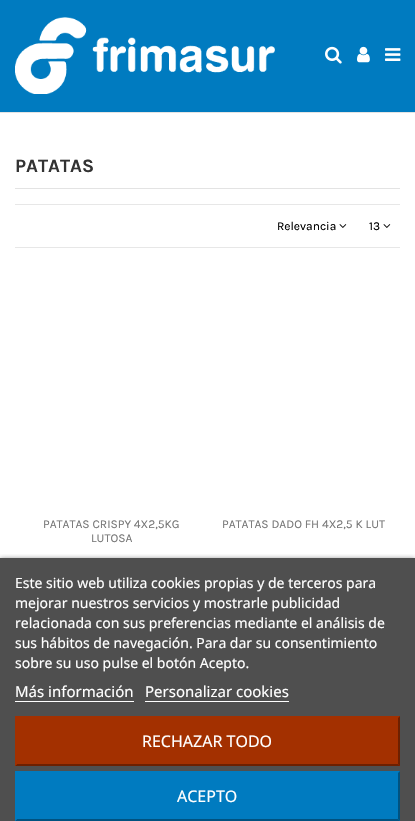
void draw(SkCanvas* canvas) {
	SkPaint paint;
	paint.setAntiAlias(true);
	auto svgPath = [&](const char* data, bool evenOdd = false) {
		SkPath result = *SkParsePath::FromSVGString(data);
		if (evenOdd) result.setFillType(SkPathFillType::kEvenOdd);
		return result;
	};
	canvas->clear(0xffffffff);
	paint.setColor(0xff4f4f4f);
	canvas->drawRect(SkRect::MakeXYWH(0, 558, 415, 263), paint);
	paint.setColor(0xff007bc0);
	canvas->drawRect(SkRect::MakeXYWH(0, 0, 415, 112), paint);
	paint.setColor(0xffe3e3e3);
	canvas->drawRect(SkRect::MakeXYWH(0, 112, 415, 1), paint);
	canvas->drawImageRect(SkImages::DeferredFromEncodedData(SkData::MakeFromFileName("img1.png")), SkRect::MakeXYWH(15, 17, 260, 77), SkSamplingOptions());
	canvas->drawImageRect(SkImages::DeferredFromEncodedData(SkData::MakeFromFileName("img2.png")), SkRect::MakeXYWH(325, 46, 17, 18), SkSamplingOptions());
	canvas->drawImageRect(SkImages::DeferredFromEncodedData(SkData::MakeFromFileName("img3.png")), SkRect::MakeXYWH(357, 46, 13, 17), SkSamplingOptions());
	canvas->drawImageRect(SkImages::DeferredFromEncodedData(SkData::MakeFromFileName("img4.png")), SkRect::MakeXYWH(385, 48, 16, 13), SkSamplingOptions());
	canvas->drawRect(SkRect::MakeXYWH(15, 188, 385, 1), paint);
	SkFont f1(fontMgr->matchFamilyStyle("Karla", SkFontStyle::Bold()), 19);
	f1.setSubpixel(true);
	paint.setColor(0xff333333);
	canvas->drawString("PATATAS", 15, 172, f1, paint);
	paint.setColor(0xffe7e7e7);
	canvas->drawRect(SkRect::MakeXYWH(15, 204, 385, 1), paint);
	canvas->drawRect(SkRect::MakeXYWH(15, 247, 385, 1), paint);
	SkFont f2(fontMgr->matchFamilyStyle("Karla", SkFontStyle::Normal()), 12);
	f2.setSubpixel(true);
	paint.setColor(0xff000000);
	canvas->drawString("Relevancia", 277, 230, f2, paint);
	canvas->drawImageRect(SkImages::DeferredFromEncodedData(SkData::MakeFromFileName("img5.png")), SkRect::MakeXYWH(339, 224, 8, 4), SkSamplingOptions());
	canvas->drawString("13", 369, 230, f2, paint);
	canvas->drawImageRect(SkImages::DeferredFromEncodedData(SkData::MakeFromFileName("img5.png")), SkRect::MakeXYWH(383, 224, 8, 4), SkSamplingOptions());
	paint.setColor(0xff777777);
	canvas->drawString("PATATAS CRISPY 4X2,5KG", 43, 528, f2, paint);
	canvas->drawString("LUTOSA", 91, 542, f2, paint);
	canvas->drawString("PATATAS DADO FH 4X2,5 K LUT", 222, 528, f2, paint);
	canvas->save();
	canvas->clipRect(SkRect::MakeXYWH(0, 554, 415, 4));
	paint.setColor(0xff707070);
	paint.setMaskFilter(SkMaskFilter::MakeBlur(kNormal_SkBlurStyle, 2.5));
	canvas->drawRect(SkRect::MakeXYWH(0, 559, 415, 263), paint);
	paint.setMaskFilter(nullptr);
	canvas->restore();
	SkFont f3(fontMgr->matchFamilyStyle("Noto Sans", SkFontStyle::Normal()), 14);
	f3.setSubpixel(true);
	paint.setColor(0xffffffff);
	canvas->drawString("Este sitio web utiliza cookies propias y de terceros para", 15, 588, f3, paint);
	canvas->drawString("mejorar nuestros servicios y mostrarle publicidad", 15, 608, f3, paint);
	canvas->drawString("relacionada con sus preferencias mediante el análisis de", 15, 628, f3, paint);
	canvas->drawString("sus hábitos de navegación. Para dar su consentimiento", 15, 648, f3, paint);
	canvas->drawString("sobre su uso pulse el botón Acepto.", 15, 668, f3, paint);
	SkFont f4(fontMgr->matchFamilyStyle("Noto Sans", SkFontStyle::Normal()), 15);
	f4.setSubpixel(true);
	canvas->drawString("Más información", 15, 697, f4, paint);
	canvas->drawRect(SkRect::MakeXYWH(15, 701, 119, 1), paint);
	canvas->drawString("Personalizar cookies", 145, 697, f4, paint);
	canvas->drawRect(SkRect::MakeXYWH(145, 701, 144, 1), paint);
	paint.setColor(0xffa33000);
	canvas->drawRect(SkRect::MakeXYWH(15, 716, 385, 50), paint);
	paint.setColor(0xff6d2000);
	canvas->drawPath(svgPath("M400 716V766L398 764V718Z"), paint);
	canvas->drawPath(svgPath("M400 766H15L17 764H398Z"), paint);
	paint.setColor(0xffa33000);
	canvas->drawPath(svgPath("M15 766V716L17 718V764Z"), paint);
	SkFont f5(fontMgr->matchFamilyStyle("Noto Sans", SkFontStyle::Normal()), 16);
	f5.setSubpixel(true);
	paint.setColor(0xffffffff);
	canvas->drawString("RECHAZAR TODO", 142, 747, f5, paint);
	paint.setColor(0xff007bc0);
	canvas->drawRect(SkRect::MakeXYWH(15, 771, 385, 50), paint);
	paint.setColor(0xff005280);
	canvas->drawPath(svgPath("M400 771V821L398 819V773Z"), paint);
	canvas->drawPath(svgPath("M400 821H15L17 819H398Z"), paint);
	paint.setColor(0xff007bc0);
	canvas->drawPath(svgPath("M15 821V771L17 773V819Z"), paint);
	paint.setColor(0xffffffff);
	canvas->drawString("ACEPTO", 177, 802, f5, paint);
}
